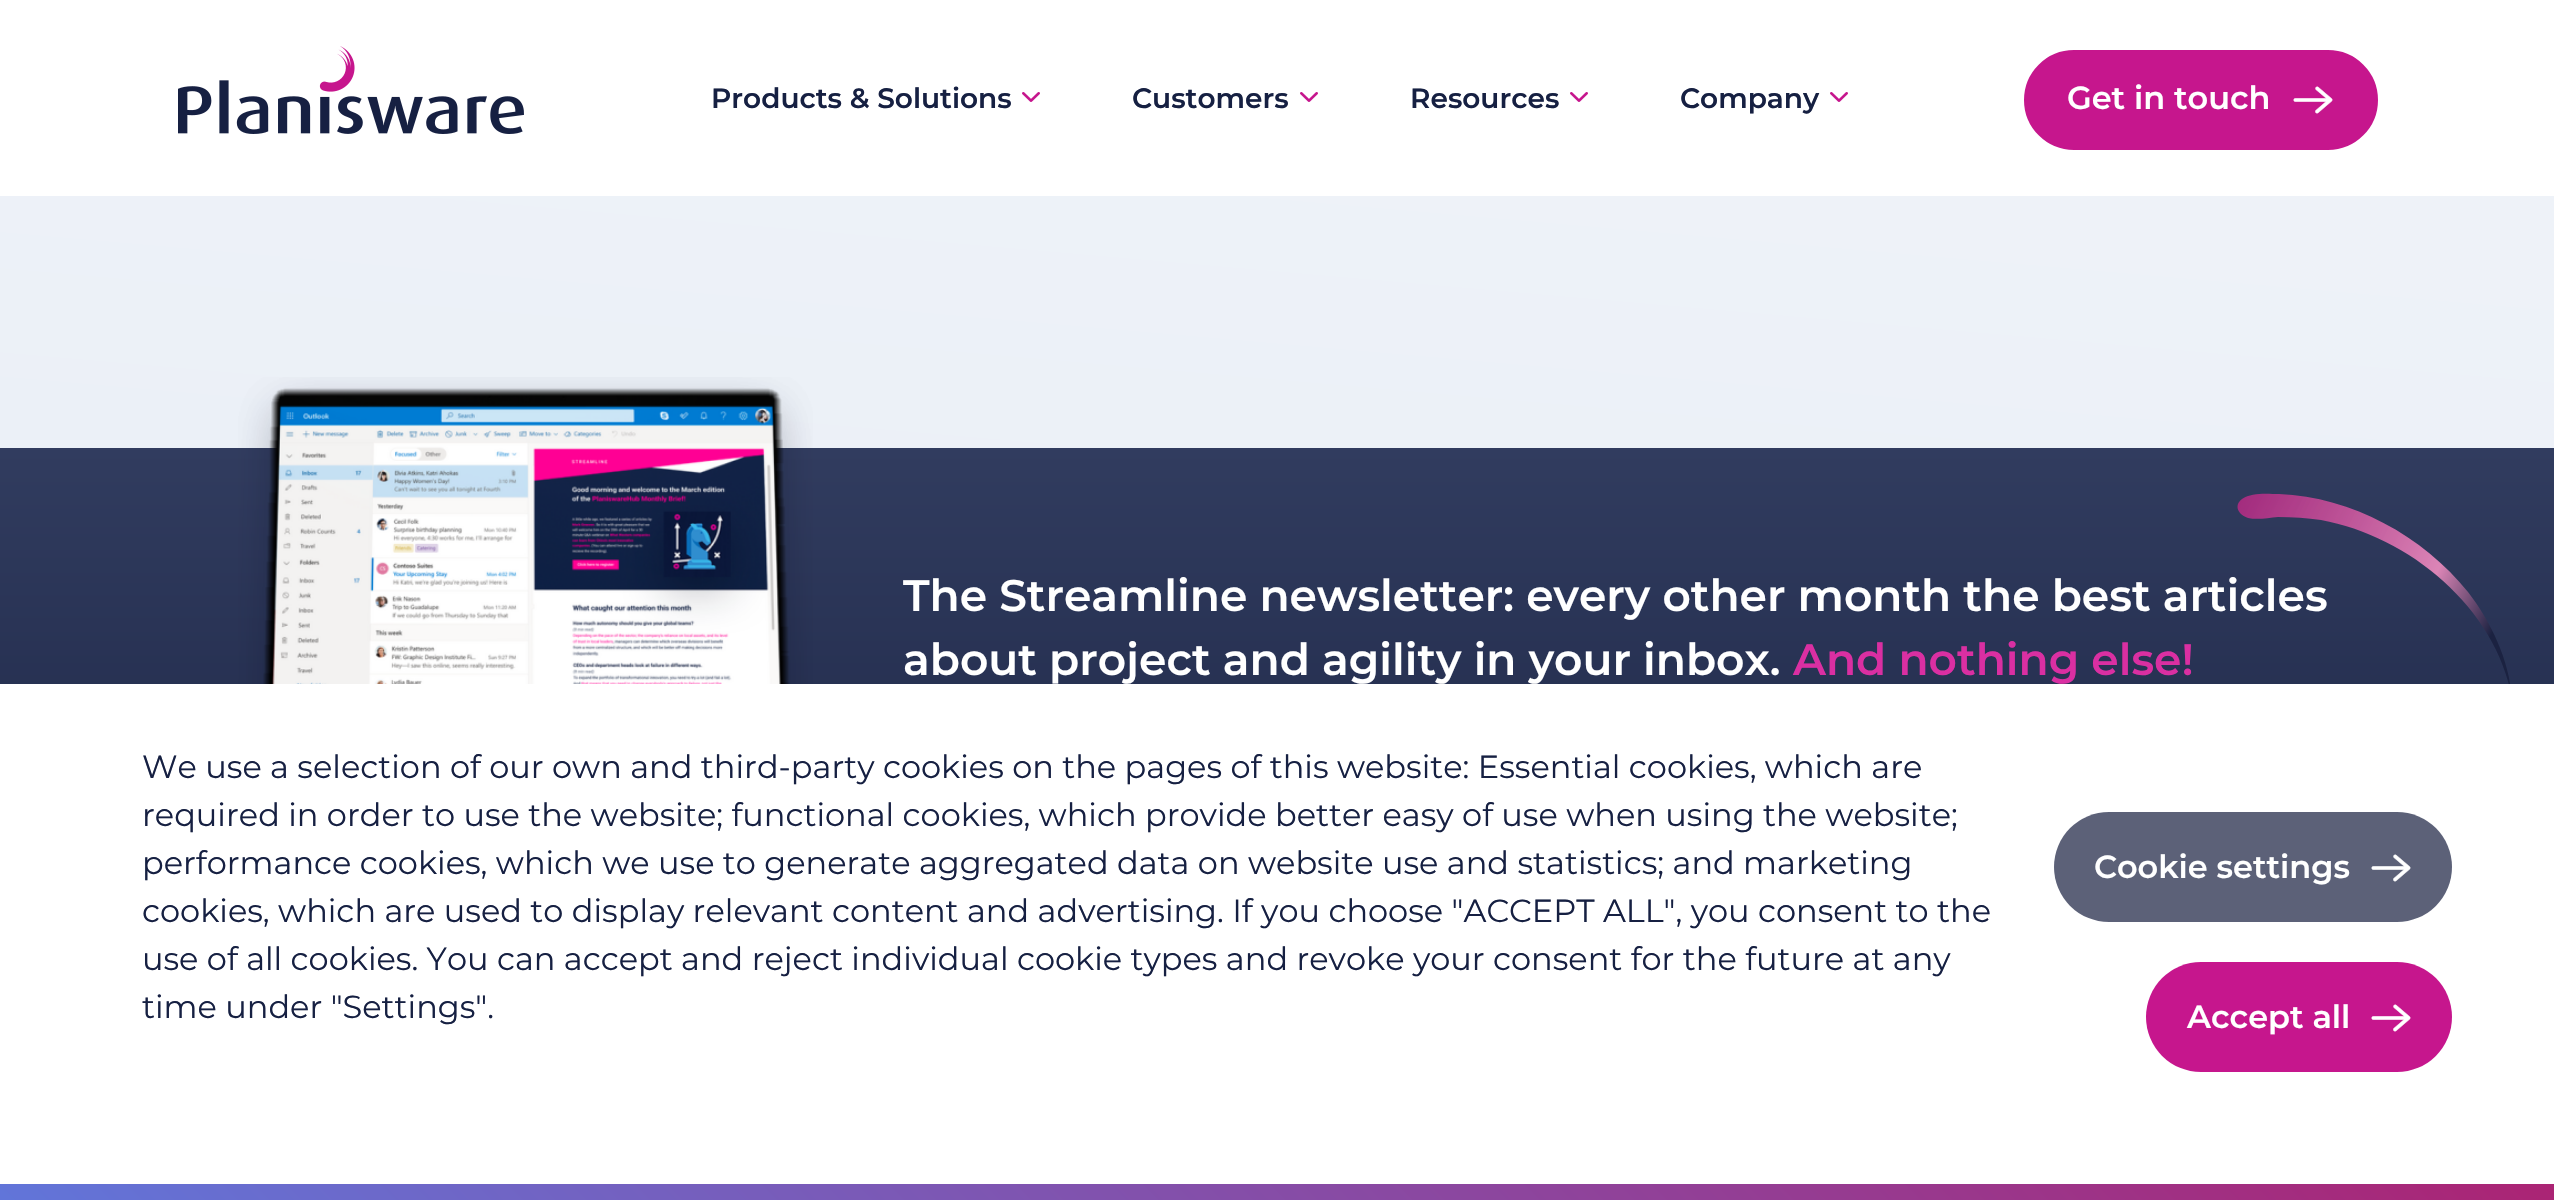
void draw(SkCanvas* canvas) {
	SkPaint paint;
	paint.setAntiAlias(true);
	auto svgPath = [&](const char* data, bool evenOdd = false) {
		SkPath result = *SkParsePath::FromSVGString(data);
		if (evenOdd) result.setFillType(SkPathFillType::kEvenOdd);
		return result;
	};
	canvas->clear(0xffffffff);
	canvas->drawImageRect(SkImages::DeferredFromEncodedData(SkData::MakeFromFileName("img1.png")), SkRect::MakeXYWH(178, 46, 346, 88), SkSamplingOptions());
	SkFont f1(fontMgr->matchFamilyStyle("Montserrat", SkFontStyle(100, SkFontStyle::kNormal_Width, SkFontStyle::kUpright_Slant)), 28);
	f1.setSubpixel(true);
	paint.setColor(0xff162042);
	canvas->drawString("Products & Solutions", 711, 108, f1, paint);
	canvas->drawImageRect(SkImages::DeferredFromEncodedData(SkData::MakeFromFileName("img2.png")), SkRect::MakeXYWH(1022, 92, 18, 10), SkSamplingOptions());
	canvas->drawString("Customers", 1132, 108, f1, paint);
	canvas->drawImageRect(SkImages::DeferredFromEncodedData(SkData::MakeFromFileName("img2.png")), SkRect::MakeXYWH(1300, 92, 18, 10), SkSamplingOptions());
	canvas->drawString("Resources", 1410, 108, f1, paint);
	canvas->drawImageRect(SkImages::DeferredFromEncodedData(SkData::MakeFromFileName("img2.png")), SkRect::MakeXYWH(1570, 92, 18, 10), SkSamplingOptions());
	canvas->drawString("Company", 1680, 108, f1, paint);
	canvas->drawImageRect(SkImages::DeferredFromEncodedData(SkData::MakeFromFileName("img2.png")), SkRect::MakeXYWH(1830, 92, 18, 10), SkSamplingOptions());
	paint.setColor(0xffc6168d);
	canvas->drawRoundRect(SkRect::MakeXYWH(2026, 52, 350, 96), 48, 48, paint);
	paint.setStroke(true);
	paint.setStrokeWidth(4);
	canvas->drawRoundRect(SkRect::MakeXYWH(2026, 52, 350, 96), 48, 48, paint);
	SkFont f2(fontMgr->matchFamilyStyle("Montserrat", SkFontStyle(100, SkFontStyle::kNormal_Width, SkFontStyle::kUpright_Slant)), 32);
	f2.setSubpixel(true);
	paint.setStroke(false);
	paint.setColor(0xffffffff);
	canvas->drawString("Get in touch", 2067, 109, f2, paint);
	canvas->drawImageRect(SkImages::DeferredFromEncodedData(SkData::MakeFromFileName("img3.png")), SkRect::MakeXYWH(2293, 86, 40, 28), SkSamplingOptions());
	{
		const SkColor colors[] = {0xffffffff, 0xffebf0f7};
		const float stops[] = {0, 1};
		const SkPoint ends[] = {{1402, -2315}, {1152, 549}};
		paint.setShader(SkGradientShader::MakeLinear(ends, colors, stops, 2, SkTileMode::kClamp));
		paint.setAlpha(255);
	}
	canvas->drawRect(SkRect::MakeXYWH(0, 196, 2554, 252), paint);
	{
		const SkColor colors[] = {0xff313c5f, 0xff182140};
		const float stops[] = {0, 1};
		const SkPoint ends[] = {{1277, 448}, {1277, 1060}};
		paint.setShader(SkGradientShader::MakeLinear(ends, colors, stops, 2, SkTileMode::kClamp));
		paint.setAlpha(255);
	}
	canvas->drawRect(SkRect::MakeXYWH(0, 448, 2554, 236), paint);
	canvas->drawImageRect(SkImages::DeferredFromEncodedData(SkData::MakeFromFileName("img4.png")), SkRect::MakeXYWH(238, 377, 575, 307), SkSamplingOptions());
	{
		const SkColor colors[] = {0xff1b2241, 0xff1b2241, 0xffdb85b6, 0xccbf2886};
		const float stops[] = {0, 0.14, 0.37, 1};
		const SkPoint ends[] = {{2534, 653}, {2237, 507}};
		paint.setShader(SkGradientShader::MakeLinear(ends, colors, stops, 4, SkTileMode::kClamp));
		paint.setAlpha(255);
	}
	canvas->drawPath(svgPath("M2248 518C2257 520 2268 518 2278 517C2293 517 2307 518 2321 520C2409 536 2496 608 2512 698C2509 659 2491 622 2468 592C2423 536 2352 497 2279 494C2268 494 2252 492 2242 499C2233 506 2239 515 2248 518Z"), paint);
	SkFont f3(fontMgr->matchFamilyStyle("Montserrat", SkFontStyle(100, SkFontStyle::kNormal_Width, SkFontStyle::kUpright_Slant)), 44);
	f3.setSubpixel(true);
	paint.setShader(nullptr);
	paint.setColor(0xffffffff);
	canvas->drawString("The Streamline newsletter: every other month the best articles", 903, 611, f3, paint);
	canvas->drawString("about project and agility in your inbox.", 903, 675, f3, paint);
	paint.setColor(0xffda2fa2);
	canvas->drawString("And nothing else!", 1793, 675, f3, paint);
	paint.setColor(0xffffffff);
	canvas->drawRect(SkRect::MakeXYWH(2508, 684, 4, 14), paint);
	SkFont f4(fontMgr->matchFamilyStyle("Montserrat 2", SkFontStyle(100, SkFontStyle::kNormal_Width, SkFontStyle::kUpright_Slant)), 32);
	f4.setSubpixel(true);
	paint.setColor(0xff162042);
	canvas->drawString("We use a selection of our own and third-party cookies on the pages of this website: Essential cookies, which are", 142, 778, f4, paint);
	canvas->drawString("required in order to use the website; functional cookies, which provide better easy of use when using the website;", 142, 826, f4, paint);
	canvas->drawString("performance cookies, which we use to generate aggregated data on website use and statistics; and marketing", 142, 874, f4, paint);
	canvas->drawString("cookies, which are used to display relevant content and advertising. If you choose \"ACCEPT ALL\", you consent to the", 142, 922, f4, paint);
	canvas->drawString("use of all cookies. You can accept and reject individual cookie types and revoke your consent for the future at any", 142, 970, f4, paint);
	canvas->drawString("time under \"Settings\".", 142, 1018, f4, paint);
	paint.setColor(0xff5c6178);
	canvas->drawRoundRect(SkRect::MakeXYWH(2054, 812, 398, 110), 55, 55, paint);
	paint.setColor(0xffffffff);
	canvas->drawString("Cookie settings", 2094, 878, f2, paint);
	canvas->drawImageRect(SkImages::DeferredFromEncodedData(SkData::MakeFromFileName("img5.png")), SkRect::MakeXYWH(2371, 854, 40, 28), SkSamplingOptions());
	paint.setColor(0xffc6168d);
	canvas->drawRoundRect(SkRect::MakeXYWH(2146, 962, 306, 110), 55, 55, paint);
	paint.setColor(0xffffffff);
	canvas->drawString("Accept all", 2187, 1028, f2, paint);
	canvas->drawImageRect(SkImages::DeferredFromEncodedData(SkData::MakeFromFileName("img3.png")), SkRect::MakeXYWH(2371, 1004, 40, 28), SkSamplingOptions());
	{
		const SkColor colors[] = {0xffab2474, 0xff6175d9};
		const float stops[] = {0, 1};
		const SkPoint ends[] = {{1920, 549}, {635, 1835}};
		paint.setShader(SkGradientShader::MakeLinear(ends, colors, stops, 2, SkTileMode::kClamp));
		paint.setAlpha(255);
	}
	canvas->drawRect(SkRect::MakeXYWH(0, 1184, 2554, 16), paint);
}
